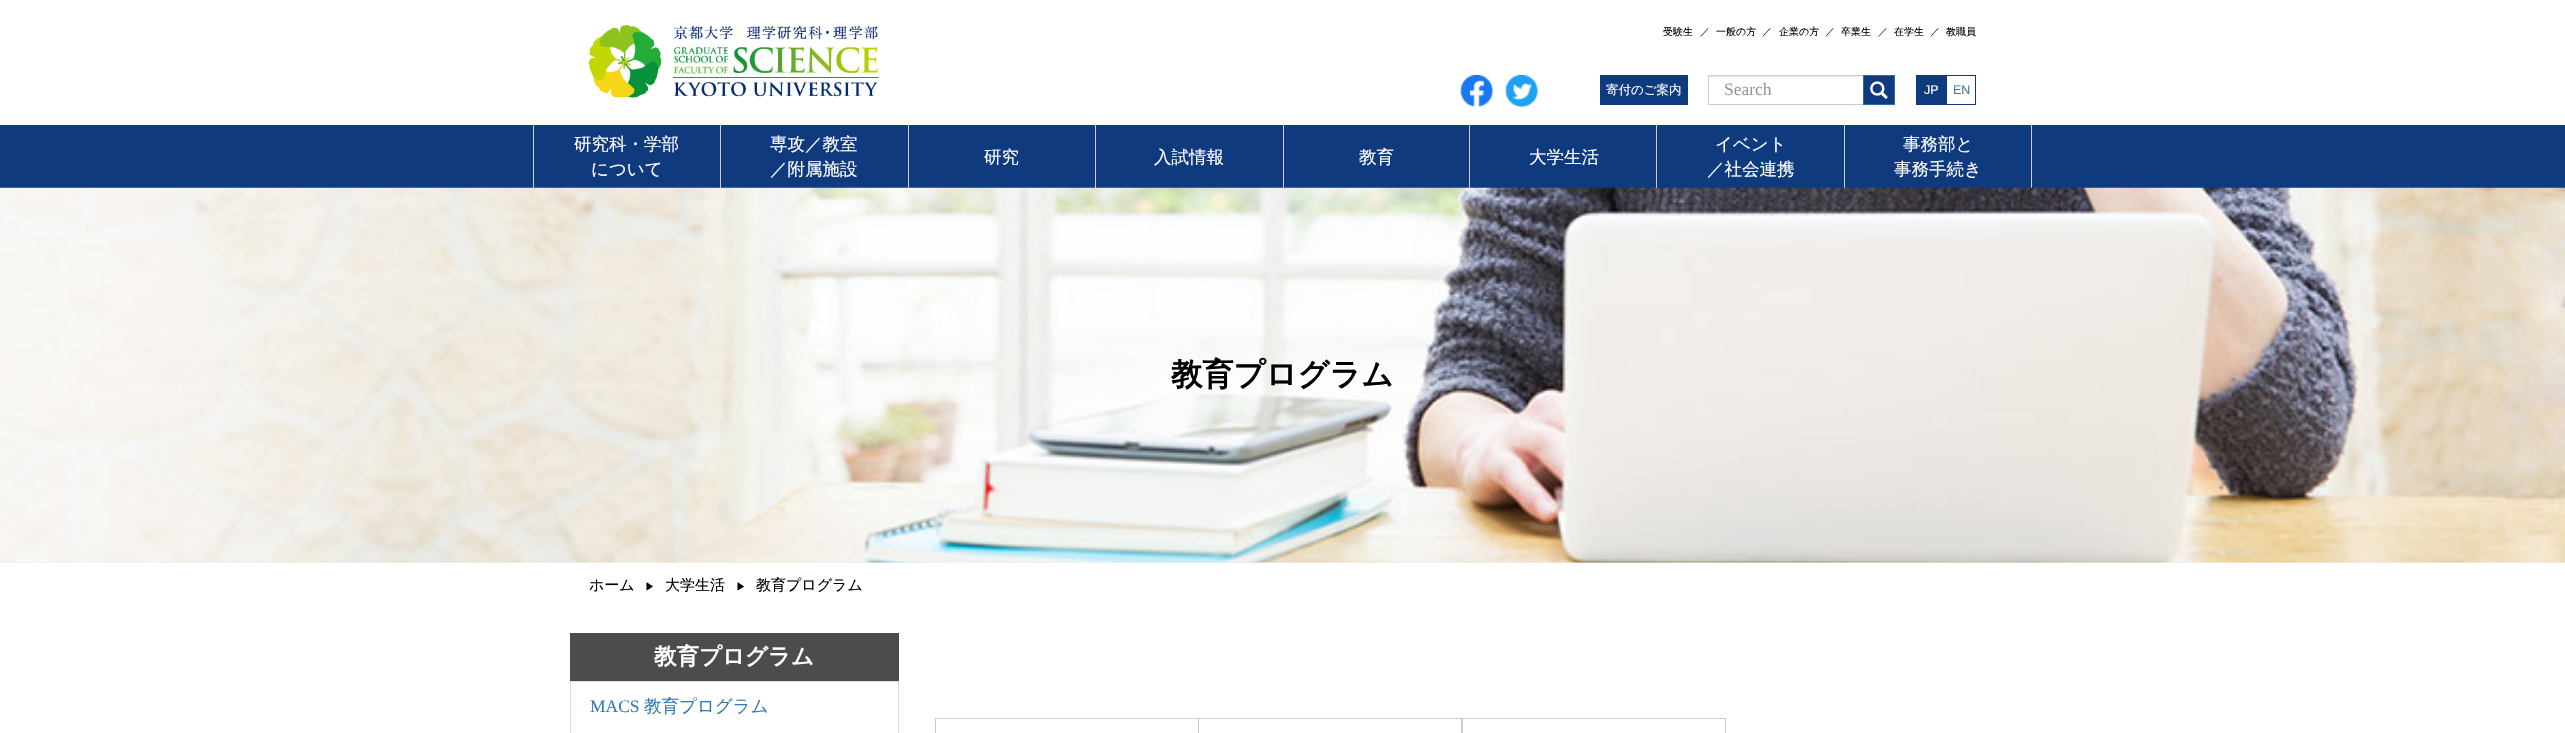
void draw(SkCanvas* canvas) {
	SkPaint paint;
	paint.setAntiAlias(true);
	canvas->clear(0xffffffff);
	SkFont f1(fontMgr->matchFamilyStyle("WenQuanYi Zen Hei", SkFontStyle(500, SkFontStyle::kNormal_Width, SkFontStyle::kUpright_Slant)), 10);
	f1.setSubpixel(true);
	paint.setColor(0xff000000);
	canvas->drawString("受験生", 1663, 35, f1, paint);
	paint.setColor(0xff333333);
	canvas->drawString("／", 1700, 35, f1, paint);
	paint.setColor(0xff000000);
	canvas->drawString("一般の方", 1716, 35, f1, paint);
	paint.setColor(0xff333333);
	canvas->drawString("／", 1762, 35, f1, paint);
	paint.setColor(0xff000000);
	canvas->drawString("企業の方", 1779, 35, f1, paint);
	paint.setColor(0xff333333);
	canvas->drawString("／", 1825, 35, f1, paint);
	paint.setColor(0xff000000);
	canvas->drawString("卒業生", 1841, 35, f1, paint);
	paint.setColor(0xff333333);
	canvas->drawString("／", 1878, 35, f1, paint);
	paint.setColor(0xff000000);
	canvas->drawString("在学生", 1894, 35, f1, paint);
	paint.setColor(0xff333333);
	canvas->drawString("／", 1930, 35, f1, paint);
	paint.setColor(0xff000000);
	canvas->drawString("教職員", 1946, 35, f1, paint);
	canvas->drawImageRect(SkImages::DeferredFromEncodedData(SkData::MakeFromFileName("img1.png")), SkRect::MakeXYWH(1460, 75, 33, 32), SkSamplingOptions());
	canvas->drawImageRect(SkImages::DeferredFromEncodedData(SkData::MakeFromFileName("img2.png")), SkRect::MakeXYWH(1505, 75, 33, 33), SkSamplingOptions());
	paint.setColor(0xff0f3a7e);
	canvas->drawRect(SkRect::MakeXYWH(1600, 75, 88, 30), paint);
	SkFont f2(fontMgr->matchFamilyStyle("WenQuanYi Zen Hei", SkFontStyle(500, SkFontStyle::kNormal_Width, SkFontStyle::kUpright_Slant)), 12.5);
	f2.setSubpixel(true);
	paint.setColor(0xffffffff);
	canvas->drawString("寄付のご案内", 1606, 94, f2, paint);
	paint.setColor(0xffececec);
	canvas->drawRect(SkRect::MakeXYWH(1709, 76, 154, 1), paint);
	paint.setStroke(true);
	paint.setStrokeWidth(1);
	paint.setColor(0xffcccccc);
	canvas->drawRect(SkRect::MakeXYWH(1708.5, 75.5, 155, 29), paint);
	SkFont f3(fontMgr->matchFamilyStyle("Liberation Serif", SkFontStyle::Normal()), 17.5);
	f3.setSubpixel(true);
	paint.setStroke(false);
	paint.setColor(0xff999999);
	canvas->drawString("Search", 1724, 95, f3, paint);
	paint.setColor(0xff0f3a7e);
	canvas->drawRect(SkRect::MakeXYWH(1863.5, 75.5, 31, 29), paint);
	paint.setStroke(true);
	paint.setColor(0xff2e6da4);
	canvas->drawRect(SkRect::MakeXYWH(1863.5, 75.5, 31, 29), paint);
	canvas->drawImageRect(SkImages::DeferredFromEncodedData(SkData::MakeFromFileName("img3.png")), SkRect::MakeXYWH(1870, 81, 18, 18), SkSamplingOptions());
	canvas->drawImageRect(SkImages::DeferredFromEncodedData(SkData::MakeFromFileName("img4.png")), SkRect::MakeXYWH(588, 25, 291, 73), SkSamplingOptions());
	paint.setStroke(false);
	paint.setColor(0xff0f3a7e);
	canvas->drawRect(SkRect::MakeXYWH(1916, 75, 30, 30), paint);
	SkFont f4(fontMgr->matchFamilyStyle("Liberation Sans", SkFontStyle::Normal()), 12.5);
	f4.setSubpixel(true);
	paint.setColor(0xffffffff);
	canvas->drawString("JP", 1924, 94, f4, paint);
	paint.setStroke(true);
	paint.setColor(0xff0f3a7e);
	canvas->drawRect(SkRect::MakeXYWH(1946.5, 75.5, 29, 29), paint);
	paint.setStroke(false);
	paint.setColor(0xff337ab7);
	canvas->drawString("EN", 1953, 94, f4, paint);
	paint.setColor(0xff0f3a7e);
	canvas->drawRect(SkRect::MakeXYWH(0, 125, 2565, 63), paint);
	paint.setColor(0xffcccccc);
	canvas->drawRect(SkRect::MakeXYWH(533, 125, 1, 63), paint);
	SkFont f5(fontMgr->matchFamilyStyle("WenQuanYi Zen Hei", SkFontStyle(500, SkFontStyle::kNormal_Width, SkFontStyle::kUpright_Slant)), 17.5);
	f5.setSubpixel(true);
	paint.setColor(0xffffffff);
	canvas->drawString("研究科・学部", 574, 150, f5, paint);
	canvas->drawString("について", 591, 175, f5, paint);
	paint.setColor(0xffcccccc);
	canvas->drawRect(SkRect::MakeXYWH(720, 125, 1, 63), paint);
	paint.setColor(0xffffffff);
	canvas->drawString("専攻／教室", 770, 150, f5, paint);
	canvas->drawString("／附属施設", 770, 175, f5, paint);
	paint.setColor(0xffcccccc);
	canvas->drawRect(SkRect::MakeXYWH(908, 125, 1, 63), paint);
	paint.setColor(0xffffffff);
	canvas->drawString("研究", 984, 163, f5, paint);
	paint.setColor(0xffcccccc);
	canvas->drawRect(SkRect::MakeXYWH(1095, 125, 1, 63), paint);
	paint.setColor(0xffffffff);
	canvas->drawString("入試情報", 1154, 163, f5, paint);
	paint.setColor(0xffcccccc);
	canvas->drawRect(SkRect::MakeXYWH(1283, 125, 1, 63), paint);
	paint.setColor(0xffffffff);
	canvas->drawString("教育", 1359, 163, f5, paint);
	paint.setColor(0xffcccccc);
	canvas->drawRect(SkRect::MakeXYWH(1469, 125, 1, 63), paint);
	paint.setColor(0xffffffff);
	canvas->drawString("大学生活", 1529, 163, f5, paint);
	paint.setColor(0xffcccccc);
	canvas->drawRect(SkRect::MakeXYWH(1656, 125, 1, 63), paint);
	paint.setColor(0xffffffff);
	canvas->drawString("イベント", 1715, 150, f5, paint);
	canvas->drawString("／社会連携", 1707, 175, f5, paint);
	paint.setColor(0xffcccccc);
	canvas->drawRect(SkRect::MakeXYWH(2031, 125, 1, 63), paint);
	canvas->drawRect(SkRect::MakeXYWH(1844, 125, 1, 63), paint);
	paint.setColor(0xffffffff);
	canvas->drawString("事務部と", 1903, 150, f5, paint);
	canvas->drawString("事務手続き", 1894, 175, f5, paint);
	paint.setColor(0xffeff0f0);
	canvas->drawRect(SkRect::MakeXYWH(0, 562, 2565, 1), paint);
	canvas->drawImageRect(SkImages::DeferredFromEncodedData(SkData::MakeFromFileName("img5.png")), SkRect::MakeXYWH(0, 187, 2565, 376), SkSamplingOptions());
	SkFont f6(fontMgr->matchFamilyStyle("WenQuanYi Zen Hei", SkFontStyle::Bold()), 31.25);
	f6.setSubpixel(true);
	paint.setColor(0xff000000);
	canvas->drawString("教育プログラム", 1171, 385, f6, paint);
	SkFont f7(fontMgr->matchFamilyStyle("WenQuanYi Zen Hei", SkFontStyle(500, SkFontStyle::kNormal_Width, SkFontStyle::kUpright_Slant)), 15);
	f7.setSubpixel(true);
	canvas->drawString("ホーム", 589, 590, f7, paint);
	canvas->drawString("▶", 645, 590, f1, paint);
	canvas->drawString("大学生活", 665, 590, f7, paint);
	canvas->drawString("▶", 736, 590, f1, paint);
	canvas->drawString("教育プログラム", 756, 590, f7, paint);
	paint.setColor(0xff4c4c4c);
	canvas->drawRect(SkRect::MakeXYWH(570, 633, 329, 48), paint);
	SkFont f8(fontMgr->matchFamilyStyle("WenQuanYi Zen Hei", SkFontStyle::Bold()), 22.5);
	f8.setSubpixel(true);
	paint.setColor(0xffffffff);
	canvas->drawString("教育プログラム", 654, 664, f8, paint);
	paint.setStroke(true);
	paint.setColor(0xffdddddd);
	canvas->drawRect(SkRect::MakeXYWH(570.5, 681.5, 328, 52), paint);
	paint.setStroke(false);
	paint.setColor(0xff337ab7);
	canvas->drawString("MACS", 590, 712, f3, paint);
	canvas->drawString("教育プログラム", 644, 712, f5, paint);
	paint.setStroke(true);
	paint.setColor(0xffcccccc);
	canvas->drawRect(SkRect::MakeXYWH(935.5, 718.5, 263, 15), paint);
	canvas->drawRect(SkRect::MakeXYWH(1198.5, 718.5, 264, 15), paint);
	canvas->drawRect(SkRect::MakeXYWH(1461.5, 718.5, 264, 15), paint);
}
